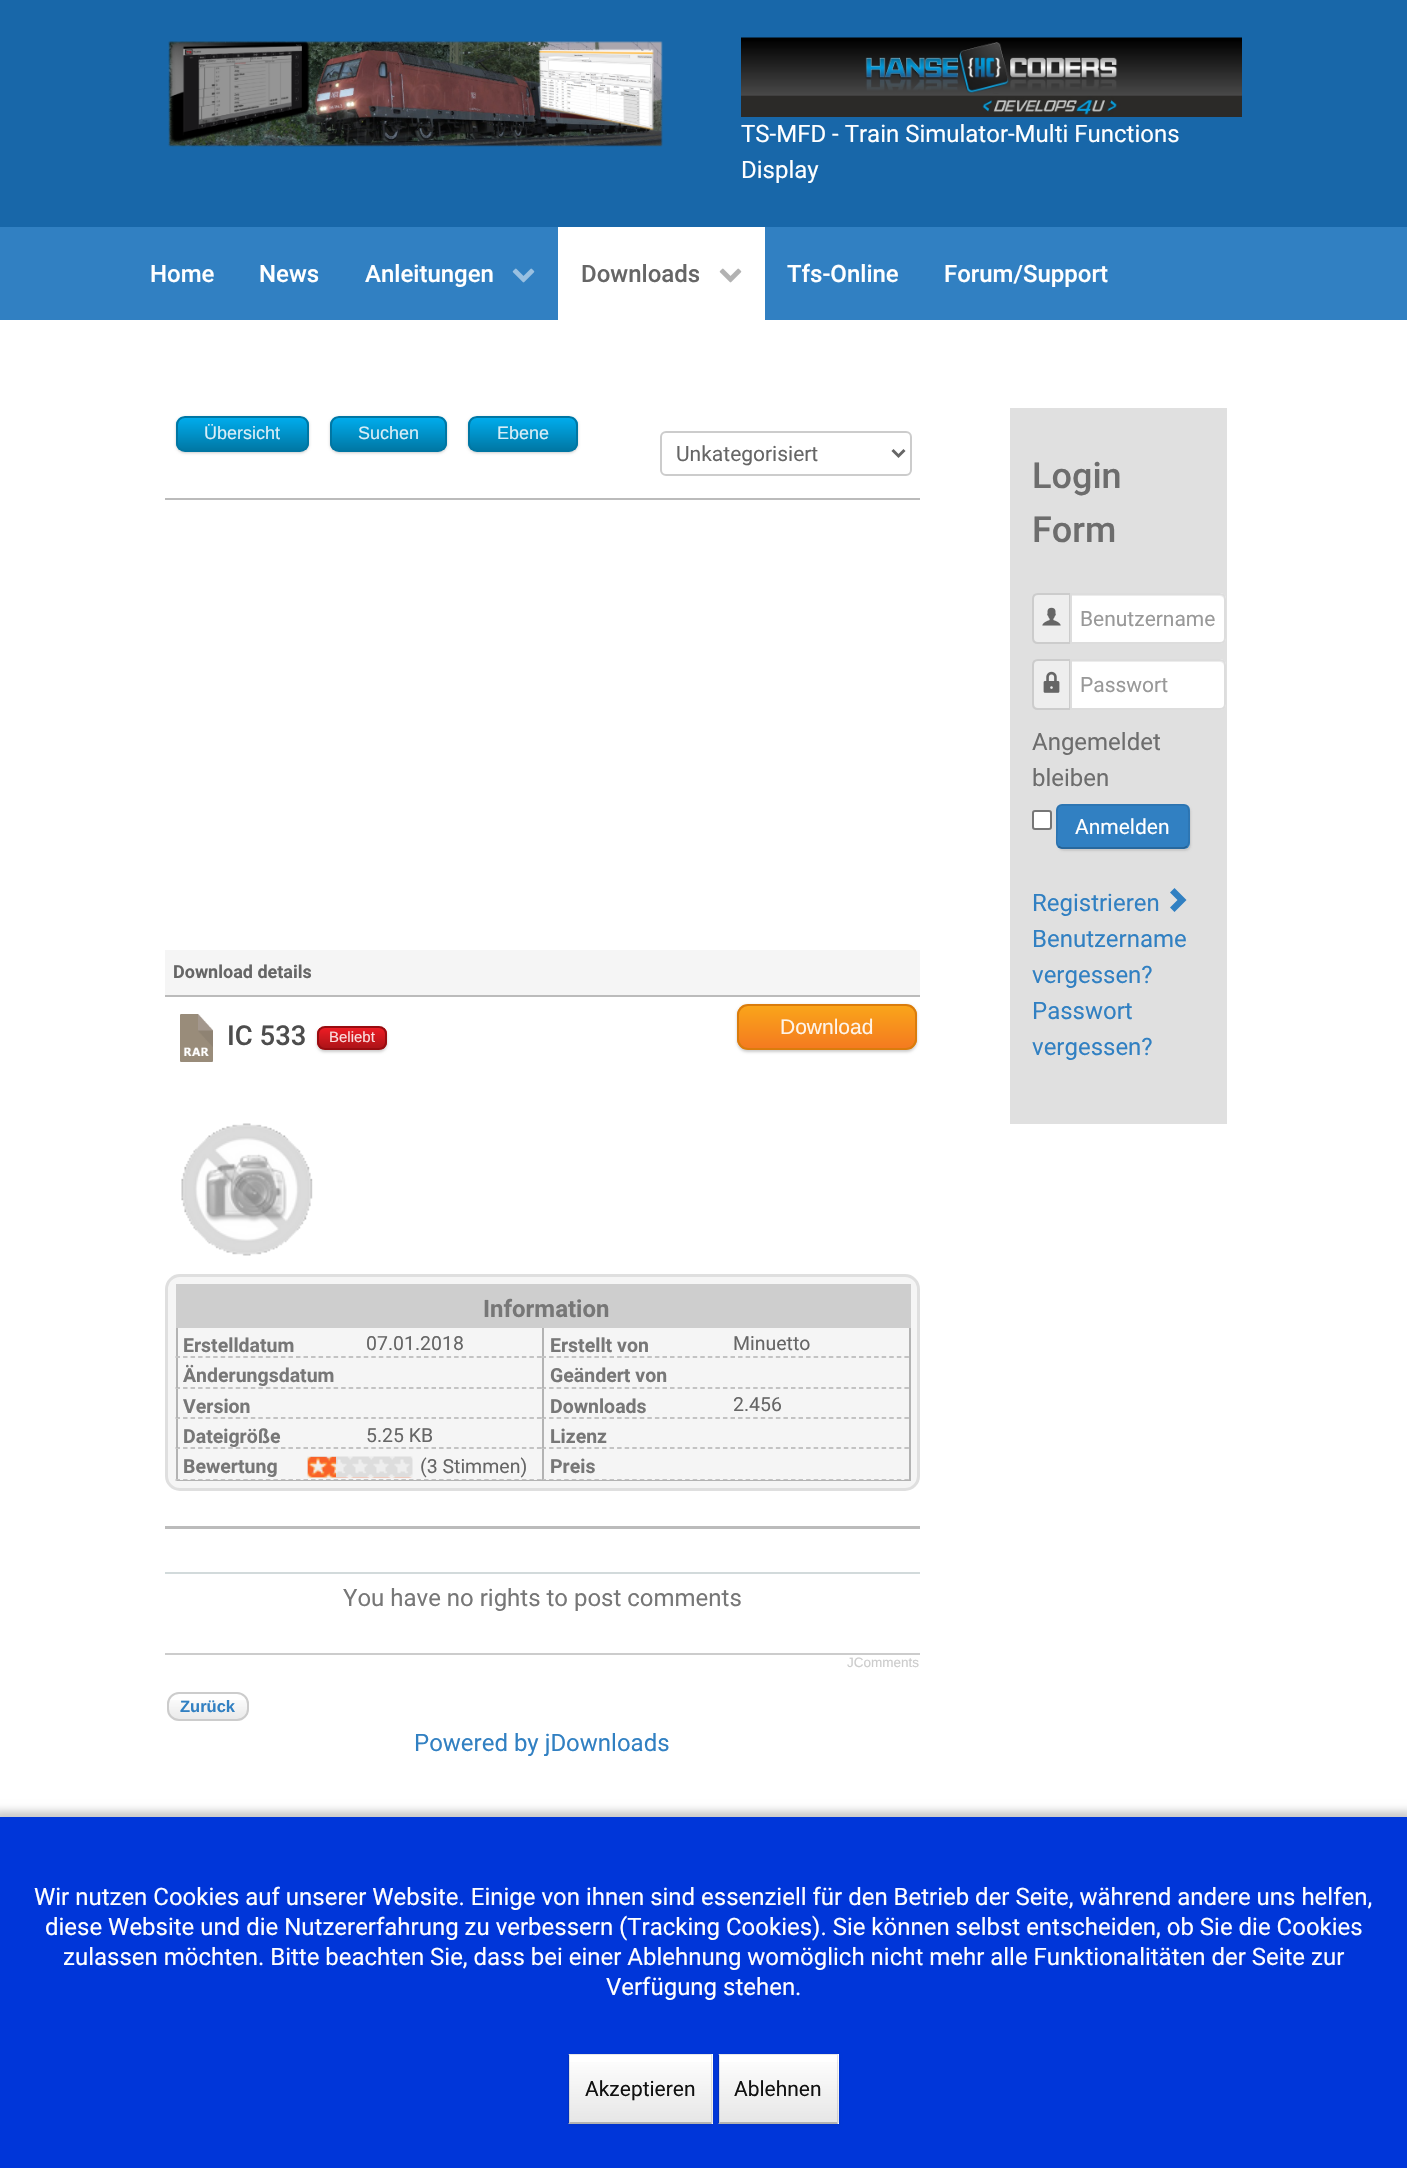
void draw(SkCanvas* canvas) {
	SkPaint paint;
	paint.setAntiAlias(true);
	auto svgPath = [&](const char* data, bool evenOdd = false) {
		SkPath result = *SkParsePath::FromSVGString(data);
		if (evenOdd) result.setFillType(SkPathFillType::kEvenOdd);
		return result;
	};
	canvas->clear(0xffffffff);
	paint.setColor(0xff1867a9);
	canvas->drawRect(SkRect::MakeXYWH(0, 0, 1407, 227), paint);
	canvas->drawImageRect(SkImages::DeferredFromEncodedData(SkData::MakeFromFileName("img1.png")), SkRect::MakeXYWH(168, 41, 495, 106), SkSamplingOptions());
	canvas->drawImageRect(SkImages::DeferredFromEncodedData(SkData::MakeFromFileName("img2.png")), SkRect::MakeXYWH(741, 37, 501, 80), SkSamplingOptions());
	SkFont f1(fontMgr->matchFamilyStyle("Roboto", SkFontStyle::Normal()), 24);
	f1.setSubpixel(true);
	paint.setColor(0xffffffff);
	canvas->drawString("TS-MFD - Train Simulator-Multi Functions", 741, 142, f1, paint);
	canvas->drawString("Display", 741, 178, f1, paint);
	paint.setColor(0xff3180c2);
	canvas->drawRect(SkRect::MakeXYWH(0, 227, 1407, 93), paint);
	SkFont f2(fontMgr->matchFamilyStyle("Roboto", SkFontStyle(500, SkFontStyle::kNormal_Width, SkFontStyle::kUpright_Slant)), 24);
	f2.setSubpixel(true);
	paint.setColor(0xffffffff);
	canvas->drawString("Home", 150, 282, f2, paint);
	canvas->drawString("News", 259, 282, f2, paint);
	canvas->drawString("Anleitungen", 365, 282, f2, paint);
	canvas->drawImageRect(SkImages::DeferredFromEncodedData(SkData::MakeFromFileName("img3.png")), SkRect::MakeXYWH(512, 268, 23, 15), SkSamplingOptions());
	canvas->drawRect(SkRect::MakeXYWH(558, 227, 207, 93), paint);
	paint.setColor(0xff666666);
	canvas->drawString("Downloads", 581, 282, f2, paint);
	canvas->drawImageRect(SkImages::DeferredFromEncodedData(SkData::MakeFromFileName("img4.png")), SkRect::MakeXYWH(719, 268, 23, 15), SkSamplingOptions());
	paint.setColor(0xffffffff);
	canvas->drawString("Tfs-Online", 787, 282, f2, paint);
	canvas->drawString("Forum/Support", 944, 282, f2, paint);
	paint.setColor(0xffbbbbbb);
	canvas->drawRect(SkRect::MakeXYWH(165, 498, 755, 2), paint);
	paint.setColor(0x33000000);
	paint.setMaskFilter(SkMaskFilter::MakeBlur(kNormal_SkBlurStyle, 1.5));
	canvas->drawRoundRect(SkRect::MakeXYWH(176, 417, 133, 36), 9, 9, paint);
	paint.setMaskFilter(nullptr);
	canvas->save();
	canvas->clipPath(svgPath("M185 416H300C305 416 309 420 309 425V443C309 448 305 452 300 452H185C180 452 176 448 176 443V425C176 420 180 416 185 416Z"), true);
	{
		const SkColor colors[] = {0xff00adee, 0xff0078a5};
		const float stops[] = {0, 1};
		const SkPoint ends[] = {{242, 417}, {242, 450}};
		paint.setShader(SkGradientShader::MakeLinear(ends, colors, stops, 2, SkTileMode::kClamp));
		paint.setAlpha(255);
	}
	canvas->drawRect(SkRect::MakeXYWH(176, 417, 133, 33), paint);
	canvas->restore();
	paint.setStroke(true);
	paint.setStrokeWidth(2);
	paint.setShader(nullptr);
	paint.setColor(0xff0076a3);
	canvas->drawRoundRect(SkRect::MakeXYWH(177, 417, 131, 34), 8, 8, paint);
	SkFont f3(fontMgr->matchFamilyStyle("Liberation Sans", SkFontStyle::Normal()), 18);
	f3.setSubpixel(true);
	paint.setStroke(false);
	paint.setColor(0xffd9eef7);
	canvas->drawString("Übersicht", 204, 439, f3, paint);
	paint.setColor(0x33000000);
	paint.setMaskFilter(SkMaskFilter::MakeBlur(kNormal_SkBlurStyle, 1.5));
	canvas->drawRoundRect(SkRect::MakeXYWH(330, 417, 117, 36), 9, 9, paint);
	paint.setMaskFilter(nullptr);
	canvas->save();
	canvas->clipPath(svgPath("M339 416H438C443 416 447 420 447 425V443C447 448 443 452 438 452H339C334 452 330 448 330 443V425C330 420 334 416 339 416Z"), true);
	{
		const SkColor colors[] = {0xff00adee, 0xff0078a5};
		const float stops[] = {0, 1};
		const SkPoint ends[] = {{389, 417}, {389, 450}};
		paint.setShader(SkGradientShader::MakeLinear(ends, colors, stops, 2, SkTileMode::kClamp));
		paint.setAlpha(255);
	}
	canvas->drawRect(SkRect::MakeXYWH(330, 417, 117, 33), paint);
	canvas->restore();
	paint.setStroke(true);
	paint.setShader(nullptr);
	paint.setColor(0xff0076a3);
	canvas->drawRoundRect(SkRect::MakeXYWH(331, 417, 115, 34), 8, 8, paint);
	paint.setStroke(false);
	paint.setColor(0xffd9eef7);
	canvas->drawString("Suchen", 358, 439, f3, paint);
	paint.setColor(0x33000000);
	paint.setMaskFilter(SkMaskFilter::MakeBlur(kNormal_SkBlurStyle, 1.5));
	canvas->drawRoundRect(SkRect::MakeXYWH(468, 417, 110, 36), 9, 9, paint);
	paint.setMaskFilter(nullptr);
	canvas->save();
	canvas->clipPath(svgPath("M477 416H569C574 416 578 420 578 425V443C578 448 574 452 569 452H477C472 452 468 448 468 443V425C468 420 472 416 477 416Z"), true);
	{
		const SkColor colors[] = {0xff00adee, 0xff0078a5};
		const float stops[] = {0, 1};
		const SkPoint ends[] = {{523, 417}, {523, 450}};
		paint.setShader(SkGradientShader::MakeLinear(ends, colors, stops, 2, SkTileMode::kClamp));
		paint.setAlpha(255);
	}
	canvas->drawRect(SkRect::MakeXYWH(468, 417, 110, 33), paint);
	canvas->restore();
	paint.setStroke(true);
	paint.setShader(nullptr);
	paint.setColor(0xff0076a3);
	canvas->drawRoundRect(SkRect::MakeXYWH(469, 417, 108, 34), 8, 8, paint);
	paint.setStroke(false);
	paint.setColor(0xffd9eef7);
	canvas->drawString("Ebene", 497, 439, f3, paint);
	paint.setStroke(true);
	paint.setColor(0xffcccccc);
	canvas->drawRoundRect(SkRect::MakeXYWH(661, 432, 250, 43), 5, 5, paint);
	paint.setStrokeWidth(3);
	paint.setColor(0xff666666);
	canvas->drawPath(svgPath("M892.5 450L898.5 456L904.5 450"), paint);
	SkFont f4(fontMgr->matchFamilyStyle("Roboto", SkFontStyle::Normal()), 21);
	f4.setSubpixel(true);
	paint.setStroke(false);
	canvas->drawString("Unkategorisiert", 676, 461, f4, paint);
	paint.setColor(0xfff5f5f5);
	canvas->drawRect(SkRect::MakeXYWH(165, 950, 755, 45), paint);
	paint.setColor(0xffbbbbbb);
	canvas->drawRect(SkRect::MakeXYWH(165, 995, 755, 2), paint);
	SkFont f5(fontMgr->matchFamilyStyle("Roboto", SkFontStyle::Bold()), 18);
	f5.setSubpixel(true);
	paint.setColor(0xff666666);
	canvas->drawString("Download details", 173, 978, f5, paint);
	paint.setColor(0xffbbbbbb);
	canvas->drawRect(SkRect::MakeXYWH(165, 1526, 755, 3), paint);
	canvas->drawImageRect(SkImages::DeferredFromEncodedData(SkData::MakeFromFileName("img5.png")), SkRect::MakeXYWH(180, 1014, 33, 48), SkSamplingOptions());
	SkFont f6(fontMgr->matchFamilyStyle("Roboto", SkFontStyle(500, SkFontStyle::kNormal_Width, SkFontStyle::kUpright_Slant)), 27.5);
	f6.setSubpixel(true);
	paint.setColor(0xff4d4d4d);
	canvas->drawString("IC 533", 227, 1045, f6, paint);
	paint.setColor(0x33000000);
	paint.setMaskFilter(SkMaskFilter::MakeBlur(kNormal_SkBlurStyle, 1.5));
	canvas->drawRoundRect(SkRect::MakeXYWH(317, 1028, 70, 24), 8, 8, paint);
	paint.setMaskFilter(nullptr);
	canvas->save();
	canvas->clipPath(svgPath("M325 1026H379C383.5 1026 387 1029.5 387 1034V1042C387 1046.5 383.5 1050 379 1050H325C320.5 1050 317 1046.5 317 1042V1034C317 1029.5 320.5 1026 325 1026Z"), true);
	{
		const SkColor colors[] = {0xffed1c24, 0xffaa1317};
		const float stops[] = {0, 1};
		const SkPoint ends[] = {{352, 1028}, {352, 1049}};
		paint.setShader(SkGradientShader::MakeLinear(ends, colors, stops, 2, SkTileMode::kClamp));
		paint.setAlpha(255);
	}
	canvas->drawRect(SkRect::MakeXYWH(317, 1028, 70, 21), paint);
	canvas->restore();
	paint.setStroke(true);
	paint.setStrokeWidth(2);
	paint.setShader(nullptr);
	paint.setColor(0xff980c10);
	canvas->drawRoundRect(SkRect::MakeXYWH(318, 1027, 68, 22), 7, 7, paint);
	SkFont f7(fontMgr->matchFamilyStyle("Liberation Sans", SkFontStyle::Normal()), 15);
	f7.setSubpixel(true);
	paint.setStroke(false);
	paint.setColor(0xfffaddde);
	canvas->drawString("Beliebt", 329, 1042, f7, paint);
	paint.setColor(0x33000000);
	paint.setMaskFilter(SkMaskFilter::MakeBlur(kNormal_SkBlurStyle, 1.5));
	canvas->drawRoundRect(SkRect::MakeXYWH(737, 1005, 180, 47), 11, 11, paint);
	paint.setMaskFilter(nullptr);
	canvas->save();
	canvas->clipPath(svgPath("M748 1004H906C912 1004 917 1009 917 1015V1039C917 1045 912 1050 906 1050H748C742 1050 737 1045 737 1039V1015C737 1009 742 1004 748 1004Z"), true);
	{
		const SkColor colors[] = {0xfffaa51a, 0xfff47a20};
		const float stops[] = {0, 1};
		const SkPoint ends[] = {{827, 1005}, {827, 1049}};
		paint.setShader(SkGradientShader::MakeLinear(ends, colors, stops, 2, SkTileMode::kClamp));
		paint.setAlpha(255);
	}
	canvas->drawRect(SkRect::MakeXYWH(737, 1005, 180, 44), paint);
	canvas->restore();
	paint.setStroke(true);
	paint.setShader(nullptr);
	paint.setColor(0xffda7c0c);
	canvas->drawRoundRect(SkRect::MakeXYWH(738, 1005, 178, 44), 10, 10, paint);
	SkFont f8(fontMgr->matchFamilyStyle("Liberation Sans", SkFontStyle::Normal()), 21);
	f8.setSubpixel(true);
	paint.setStroke(false);
	paint.setColor(0xfffef4e9);
	canvas->drawString("Download", 780, 1034, f8, paint);
	canvas->drawImageRect(SkImages::DeferredFromEncodedData(SkData::MakeFromFileName("img6.png")), SkRect::MakeXYWH(181, 1123, 132, 133), SkSamplingOptions());
	paint.setColor(0xfff5f5f5);
	canvas->drawRoundRect(SkRect::MakeXYWH(166.5, 1275.5, 752, 214), 13.5, 13.5, paint);
	paint.setStroke(true);
	paint.setStrokeWidth(3);
	paint.setColor(0xffdfdfdf);
	canvas->drawRoundRect(SkRect::MakeXYWH(166.5, 1275.5, 752, 214), 13.5, 13.5, paint);
	paint.setStroke(false);
	paint.setColor(0xffcecece);
	canvas->drawPath(svgPath("M177 1328H911V1284H909V1328Z"), paint);
	canvas->drawRect(SkRect::MakeXYWH(176, 1284, 733, 44), paint);
	SkFont f9(fontMgr->matchFamilyStyle("Roboto", SkFontStyle::Bold()), 24);
	f9.setSubpixel(true);
	paint.setColor(0xff777777);
	canvas->drawString("Information", 483, 1317, f9, paint);
	paint.setColor(0xffb3b3b3);
	canvas->drawRect(SkRect::MakeXYWH(176, 1328, 2, 28), paint);
	paint.setStroke(true);
	paint.setStrokeWidth(1.5);
	paint.setPathEffect(SkDashPathEffect::Make({{4.5f, 3.03f}}, 0));
	canvas->drawPath(svgPath("M175.5 1357H541.5"), paint);
	paint.setPathEffect(nullptr);
	SkFont f10(fontMgr->matchFamilyStyle("Roboto", SkFontStyle::Bold()), 19.5);
	f10.setSubpixel(true);
	paint.setStroke(false);
	paint.setColor(0xff777777);
	canvas->drawString("Erstelldatum", 183, 1352, f10, paint);
	SkFont f11(fontMgr->matchFamilyStyle("Roboto", SkFontStyle::Normal()), 19.5);
	f11.setSubpixel(true);
	paint.setColor(0xff666666);
	canvas->drawString("07.01.2018", 366, 1350, f11, paint);
	paint.setColor(0xffb3b3b3);
	canvas->drawRect(SkRect::MakeXYWH(176, 1358, 2, 30), paint);
	paint.setStroke(true);
	paint.setPathEffect(SkDashPathEffect::Make({{4.5f, 3.03f}}, 0));
	canvas->drawPath(svgPath("M175.5 1388H541.5"), paint);
	paint.setPathEffect(nullptr);
	paint.setStroke(false);
	paint.setColor(0xff777777);
	canvas->drawString("Änderungsdatum", 183, 1382, f10, paint);
	paint.setColor(0xffb3b3b3);
	canvas->drawRect(SkRect::MakeXYWH(176, 1389, 2, 29), paint);
	paint.setStroke(true);
	paint.setPathEffect(SkDashPathEffect::Make({{4.5f, 3.03f}}, 0));
	canvas->drawPath(svgPath("M175.5 1418H541.5"), paint);
	paint.setPathEffect(nullptr);
	paint.setStroke(false);
	paint.setColor(0xff777777);
	canvas->drawString("Version", 183, 1413, f10, paint);
	paint.setColor(0xffb3b3b3);
	canvas->drawRect(SkRect::MakeXYWH(176, 1419, 2, 29), paint);
	paint.setStroke(true);
	paint.setPathEffect(SkDashPathEffect::Make({{4.5f, 3.03f}}, 0));
	canvas->drawPath(svgPath("M175.5 1448H541.5"), paint);
	paint.setPathEffect(nullptr);
	paint.setStroke(false);
	paint.setColor(0xff777777);
	canvas->drawString("Dateigröße", 183, 1443, f10, paint);
	paint.setColor(0xff666666);
	canvas->drawString("5.25 KB", 366, 1442, f11, paint);
	paint.setColor(0xffb3b3b3);
	canvas->drawPath(svgPath("M177 1480V1481H543V1449H542V1480Z"), paint);
	canvas->drawRect(SkRect::MakeXYWH(176, 1449, 2, 30), paint);
	paint.setStroke(true);
	paint.setPathEffect(SkDashPathEffect::Make({{4.5f, 3.03f}}, 0));
	canvas->drawPath(svgPath("M175.5 1480H541.5"), paint);
	paint.setPathEffect(nullptr);
	paint.setStroke(false);
	paint.setColor(0xff777777);
	canvas->drawString("Bewertung", 183, 1473, f10, paint);
	canvas->drawImageRect(SkImages::DeferredFromEncodedData(SkData::MakeFromFileName("img7.png")), SkRect::MakeXYWH(307, 1456, 106, 22), SkSamplingOptions());
	canvas->drawImageRect(SkImages::DeferredFromEncodedData(SkData::MakeFromFileName("img8.png")), SkRect::MakeXYWH(307, 1456, 29, 22), SkSamplingOptions());
	paint.setColor(0xff666666);
	canvas->drawString("(3 Stimmen)", 420, 1473, f11, paint);
	paint.setColor(0xffb3b3b3);
	canvas->drawPath(svgPath("M543 1358H911V1328H909V1358Z"), paint);
	canvas->drawRect(SkRect::MakeXYWH(542, 1328, 2, 28), paint);
	paint.setStroke(true);
	paint.setPathEffect(SkDashPathEffect::Make({{4.5f, 3.06f}}, 0));
	canvas->drawPath(svgPath("M541.5 1357H909"), paint);
	paint.setPathEffect(nullptr);
	paint.setStroke(false);
	paint.setColor(0xff777777);
	canvas->drawString("Erstellt von", 550, 1352, f10, paint);
	paint.setColor(0xff666666);
	canvas->drawString("Minuetto", 733, 1350, f11, paint);
	paint.setColor(0xffb3b3b3);
	canvas->drawRect(SkRect::MakeXYWH(909, 1358, 2, 91), paint);
	canvas->drawRect(SkRect::MakeXYWH(542, 1358, 2, 30), paint);
	paint.setStroke(true);
	paint.setPathEffect(SkDashPathEffect::Make({{4.5f, 3.06f}}, 0));
	canvas->drawPath(svgPath("M541.5 1388H909"), paint);
	paint.setPathEffect(nullptr);
	paint.setStroke(false);
	paint.setColor(0xff777777);
	canvas->drawString("Geändert von", 550, 1382, f10, paint);
	paint.setColor(0xffb3b3b3);
	canvas->drawRect(SkRect::MakeXYWH(542, 1389, 2, 29), paint);
	paint.setStroke(true);
	paint.setPathEffect(SkDashPathEffect::Make({{4.5f, 3.06f}}, 0));
	canvas->drawPath(svgPath("M541.5 1418H909"), paint);
	paint.setPathEffect(nullptr);
	paint.setStroke(false);
	paint.setColor(0xff777777);
	canvas->drawString("Downloads", 550, 1413, f10, paint);
	paint.setColor(0xff666666);
	canvas->drawString("2.456", 733, 1411, f11, paint);
	paint.setColor(0xffb3b3b3);
	canvas->drawRect(SkRect::MakeXYWH(542, 1419, 2, 29), paint);
	paint.setStroke(true);
	paint.setPathEffect(SkDashPathEffect::Make({{4.5f, 3.06f}}, 0));
	canvas->drawPath(svgPath("M541.5 1448H909"), paint);
	paint.setPathEffect(nullptr);
	paint.setStroke(false);
	paint.setColor(0xff777777);
	canvas->drawString("Lizenz", 550, 1443, f10, paint);
	paint.setColor(0xffb3b3b3);
	canvas->drawPath(svgPath("M543 1480V1481H911V1449H909V1480Z"), paint);
	canvas->drawRect(SkRect::MakeXYWH(543, 1449, 1, 30), paint);
	paint.setStroke(true);
	paint.setPathEffect(SkDashPathEffect::Make({{4.5f, 3.06f}}, 0));
	canvas->drawPath(svgPath("M541.5 1480H909"), paint);
	paint.setPathEffect(nullptr);
	paint.setStroke(false);
	paint.setColor(0xff777777);
	canvas->drawString("Preis", 550, 1473, f10, paint);
	paint.setColor(0xffd2dadb);
	canvas->drawRect(SkRect::MakeXYWH(165, 1572, 755, 2), paint);
	paint.setColor(0xff777777);
	canvas->drawString("You have no rights to post comments", 343, 1606, f1, paint);
	paint.setColor(0xffcccccc);
	canvas->drawRect(SkRect::MakeXYWH(165, 1653, 755, 2), paint);
	SkFont f12(fontMgr->matchFamilyStyle("Liberation Sans", SkFontStyle::Normal()), 13.5);
	f12.setSubpixel(true);
	canvas->drawString("JComments", 847, 1667, f12, paint);
	canvas->drawImageRect(SkImages::DeferredFromEncodedData(SkData::MakeFromFileName("img9.png")), SkRect::MakeXYWH(167, 1700, 82, 21), SkSamplingOptions());
	paint.setStroke(true);
	paint.setStrokeWidth(2);
	canvas->drawRoundRect(SkRect::MakeXYWH(168, 1693, 80, 27), 11, 11, paint);
	SkFont f13(fontMgr->matchFamilyStyle("Liberation Sans", SkFontStyle::Bold()), 16.5);
	f13.setSubpixel(true);
	paint.setStroke(false);
	paint.setColor(0xff3180c2);
	canvas->drawString("Zurück", 180, 1712, f13, paint);
	canvas->drawString("Powered by jDownloads", 414, 1751, f1, paint);
	paint.setColor(0xffe0e0e0);
	canvas->drawRect(SkRect::MakeXYWH(1010, 408, 217, 716), paint);
	SkFont f14(fontMgr->matchFamilyStyle("Roboto", SkFontStyle(500, SkFontStyle::kNormal_Width, SkFontStyle::kUpright_Slant)), 36);
	f14.setSubpixel(true);
	paint.setColor(0xff6d6d6d);
	canvas->drawString("Login", 1032, 488, f14, paint);
	canvas->drawString("Form", 1032, 542, f14, paint);
	paint.setColor(0xffeeeeee);
	canvas->drawPath(svgPath("M1038 594H1070V643H1038C1035 643 1033 641 1033 638V599C1033 596 1035 594 1038 594Z"), paint);
	paint.setStroke(true);
	paint.setColor(0xffcccccc);
	canvas->drawPath(svgPath("M1038 594H1070V643H1038C1035 643 1033 641 1033 638V599C1033 596 1035 594 1038 594Z"), paint);
	canvas->drawImageRect(SkImages::DeferredFromEncodedData(SkData::MakeFromFileName("img10.png")), SkRect::MakeXYWH(1042, 607, 19, 19), SkSamplingOptions());
	paint.setStroke(false);
	paint.setColor(0xffffffff);
	canvas->drawPath(svgPath("M1070 593H1220C1223.5 593 1226 595.5 1226 599V638C1226 641.5 1223.5 644 1220 644H1070Z"), paint);
	paint.setColor(0xffececec);
	canvas->drawPath(svgPath("M1071 596H1220C1222 596 1224 598 1224 600V599C1224 596 1222 594 1219 594H1071Z"), paint);
	paint.setStroke(true);
	paint.setColor(0xffdddddd);
	canvas->drawPath(svgPath("M1071 594H1220C1223 594 1225 596 1225 599V638C1225 641 1223 643 1220 643H1071Z"), paint);
	paint.setStroke(false);
	paint.setColor(0xff999999);
	canvas->drawString("Benutzername", 1080, 626, f4, paint);
	paint.setColor(0xffeeeeee);
	canvas->drawPath(svgPath("M1038 660H1070V709H1038C1035 709 1033 707 1033 704V665C1033 662 1035 660 1038 660Z"), paint);
	paint.setStroke(true);
	paint.setColor(0xffcccccc);
	canvas->drawPath(svgPath("M1038 660H1070V709H1038C1035 709 1033 707 1033 704V665C1033 662 1035 660 1038 660Z"), paint);
	canvas->drawImageRect(SkImages::DeferredFromEncodedData(SkData::MakeFromFileName("img11.png")), SkRect::MakeXYWH(1043, 671, 17, 22), SkSamplingOptions());
	paint.setStroke(false);
	paint.setColor(0xffffffff);
	canvas->drawPath(svgPath("M1070 659H1220C1223.5 659 1226 661.5 1226 665V704C1226 707.5 1223.5 710 1220 710H1070Z"), paint);
	paint.setColor(0xffececec);
	canvas->drawPath(svgPath("M1071 662H1220C1222 662 1224 664 1224 666V665C1224 662 1222 660 1219 660H1071Z"), paint);
	paint.setStroke(true);
	paint.setColor(0xffdddddd);
	canvas->drawPath(svgPath("M1071 660H1220C1223 660 1225 662 1225 665V704C1225 707 1223 709 1220 709H1071Z"), paint);
	paint.setStroke(false);
	paint.setColor(0xff999999);
	canvas->drawString("Passwort", 1080, 692, f4, paint);
	paint.setColor(0xff6d6d6d);
	canvas->drawString("Angemeldet", 1032, 750, f1, paint);
	canvas->drawString("bleiben", 1032, 786, f1, paint);
	paint.setColor(0xffffffff);
	canvas->drawRoundRect(SkRect::MakeXYWH(1033, 811, 18, 18), 2, 2, paint);
	paint.setStroke(true);
	paint.setColor(0xff767676);
	canvas->drawRoundRect(SkRect::MakeXYWH(1033, 811, 18, 18), 2, 2, paint);
	paint.setStroke(false);
	paint.setColor(0x1a000000);
	paint.setMaskFilter(SkMaskFilter::MakeBlur(kNormal_SkBlurStyle, 1));
	canvas->drawRoundRect(SkRect::MakeXYWH(1058, 806, 133, 45), 6, 6, paint);
	paint.setMaskFilter(nullptr);
	paint.setColor(0xff3180c2);
	canvas->drawRoundRect(SkRect::MakeXYWH(1056, 804, 134, 45), 6, 6, paint);
	paint.setStroke(true);
	paint.setStrokeWidth(1.5);
	paint.setColor(0x40000000);
	canvas->drawPath(svgPath("M1187 846.5L1184 848H1061.5L1058.5 846.5"), paint);
	paint.setColor(0x1a000000);
	canvas->drawPath(svgPath("M1058.5 846.5C1055 843.5 1057 835.5 1057 832V815.5C1057 811.5 1056 805 1062 805H1163C1192 805 1189 800 1189 826.5V837.5C1189 840.5 1189.5 844.5 1187 846.5"), paint);
	paint.setStroke(false);
	paint.setColor(0xffffffff);
	canvas->drawString("Anmelden", 1075, 834, f4, paint);
	paint.setColor(0xff3180c2);
	canvas->drawString("Registrieren", 1032, 911, f1, paint);
	canvas->drawPath(svgPath("M1174.5 888L1186.5 900L1174.5 912L1170 907.5L1177.5 900L1170 892.5Z"), paint);
	canvas->drawString("Benutzername", 1032, 947, f1, paint);
	canvas->drawString("vergessen?", 1032, 983, f1, paint);
	canvas->drawString("Passwort", 1032, 1019, f1, paint);
	canvas->drawString("vergessen?", 1032, 1055, f1, paint);
	paint.setColor(0x36000000);
	paint.setMaskFilter(SkMaskFilter::MakeBlur(kNormal_SkBlurStyle, 4));
	canvas->drawRect(SkRect::MakeXYWH(-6, 1811, 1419, 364), paint);
	paint.setMaskFilter(nullptr);
	paint.setColor(0xff0036d9);
	canvas->drawRect(SkRect::MakeXYWH(0, 1817, 1407, 351), paint);
	paint.setColor(0xffffffff);
	canvas->drawString("Wir nutzen Cookies auf unserer Website. Einige von ihnen sind essenziell für den Betrieb der Seite, während andere uns helfen,", 34, 1905, f1, paint);
	canvas->drawString("diese Website und die Nutzererfahrung zu verbessern (Tracking Cookies). Sie können selbst entscheiden, ob Sie die Cookies", 45, 1935, f1, paint);
	canvas->drawString("zulassen möchten. Bitte beachten Sie, dass bei einer Ablehnung womöglich nicht mehr alle Funktionalitäten der Seite zur", 63, 1965, f1, paint);
	canvas->drawString("Verfügung stehen.", 606, 1995, f1, paint);
	paint.setColor(0x0d000000);
	paint.setMaskFilter(SkMaskFilter::MakeBlur(kNormal_SkBlurStyle, 1.5));
	canvas->drawRect(SkRect::MakeXYWH(569, 2055, 144, 71), paint);
	paint.setMaskFilter(nullptr);
	paint.setColor(0xffffffff);
	canvas->drawRect(SkRect::MakeXYWH(569, 2054, 144, 70), paint);
	{
		const SkColor colors[] = {0xffffffff, 0xffe6e6e6};
		const float stops[] = {0, 1};
		const SkPoint ends[] = {{641, 2055}, {641, 2123}};
		paint.setShader(SkGradientShader::MakeLinear(ends, colors, stops, 2, SkTileMode::kClamp));
		paint.setAlpha(255);
	}
	canvas->drawRect(SkRect::MakeXYWH(569, 2062, 144, 61), paint);
	paint.setShader(nullptr);
	paint.setColor(0xffe6e6e6);
	canvas->drawPath(svgPath("M568 2054H712L711 2055H570Z"), paint);
	paint.setColor(0x1a000000);
	canvas->drawPath(svgPath("M712 2054V2124L711 2122V2055Z"), paint);
	paint.setColor(0xffb3b3b3);
	canvas->drawPath(svgPath("M712 2124H568L570 2122H711Z"), paint);
	paint.setColor(0x1a000000);
	canvas->drawPath(svgPath("M568 2124V2054L570 2055V2122Z"), paint);
	paint.setColor(0xff111111);
	canvas->drawString("Akzeptieren", 585, 2096, f4, paint);
	paint.setColor(0x0d000000);
	paint.setMaskFilter(SkMaskFilter::MakeBlur(kNormal_SkBlurStyle, 1.5));
	canvas->drawRect(SkRect::MakeXYWH(719, 2055, 120, 71), paint);
	paint.setMaskFilter(nullptr);
	paint.setColor(0xffffffff);
	canvas->drawRect(SkRect::MakeXYWH(719, 2054, 120, 70), paint);
	{
		const SkColor colors[] = {0xffffffff, 0xffe6e6e6};
		const float stops[] = {0, 1};
		const SkPoint ends[] = {{779, 2055}, {779, 2123}};
		paint.setShader(SkGradientShader::MakeLinear(ends, colors, stops, 2, SkTileMode::kClamp));
		paint.setAlpha(255);
	}
	canvas->drawRect(SkRect::MakeXYWH(719, 2062, 120, 61), paint);
	paint.setShader(nullptr);
	paint.setColor(0xffe6e6e6);
	canvas->drawPath(svgPath("M718 2054H838L837 2055H720Z"), paint);
	paint.setColor(0x1a000000);
	canvas->drawPath(svgPath("M838 2054V2124L837 2122V2055Z"), paint);
	paint.setColor(0xffb3b3b3);
	canvas->drawPath(svgPath("M838 2124H718L720 2122H837Z"), paint);
	paint.setColor(0x1a000000);
	canvas->drawPath(svgPath("M718 2124V2054L720 2055V2122Z"), paint);
	paint.setColor(0xff111111);
	canvas->drawString("Ablehnen", 734, 2096, f4, paint);
}
